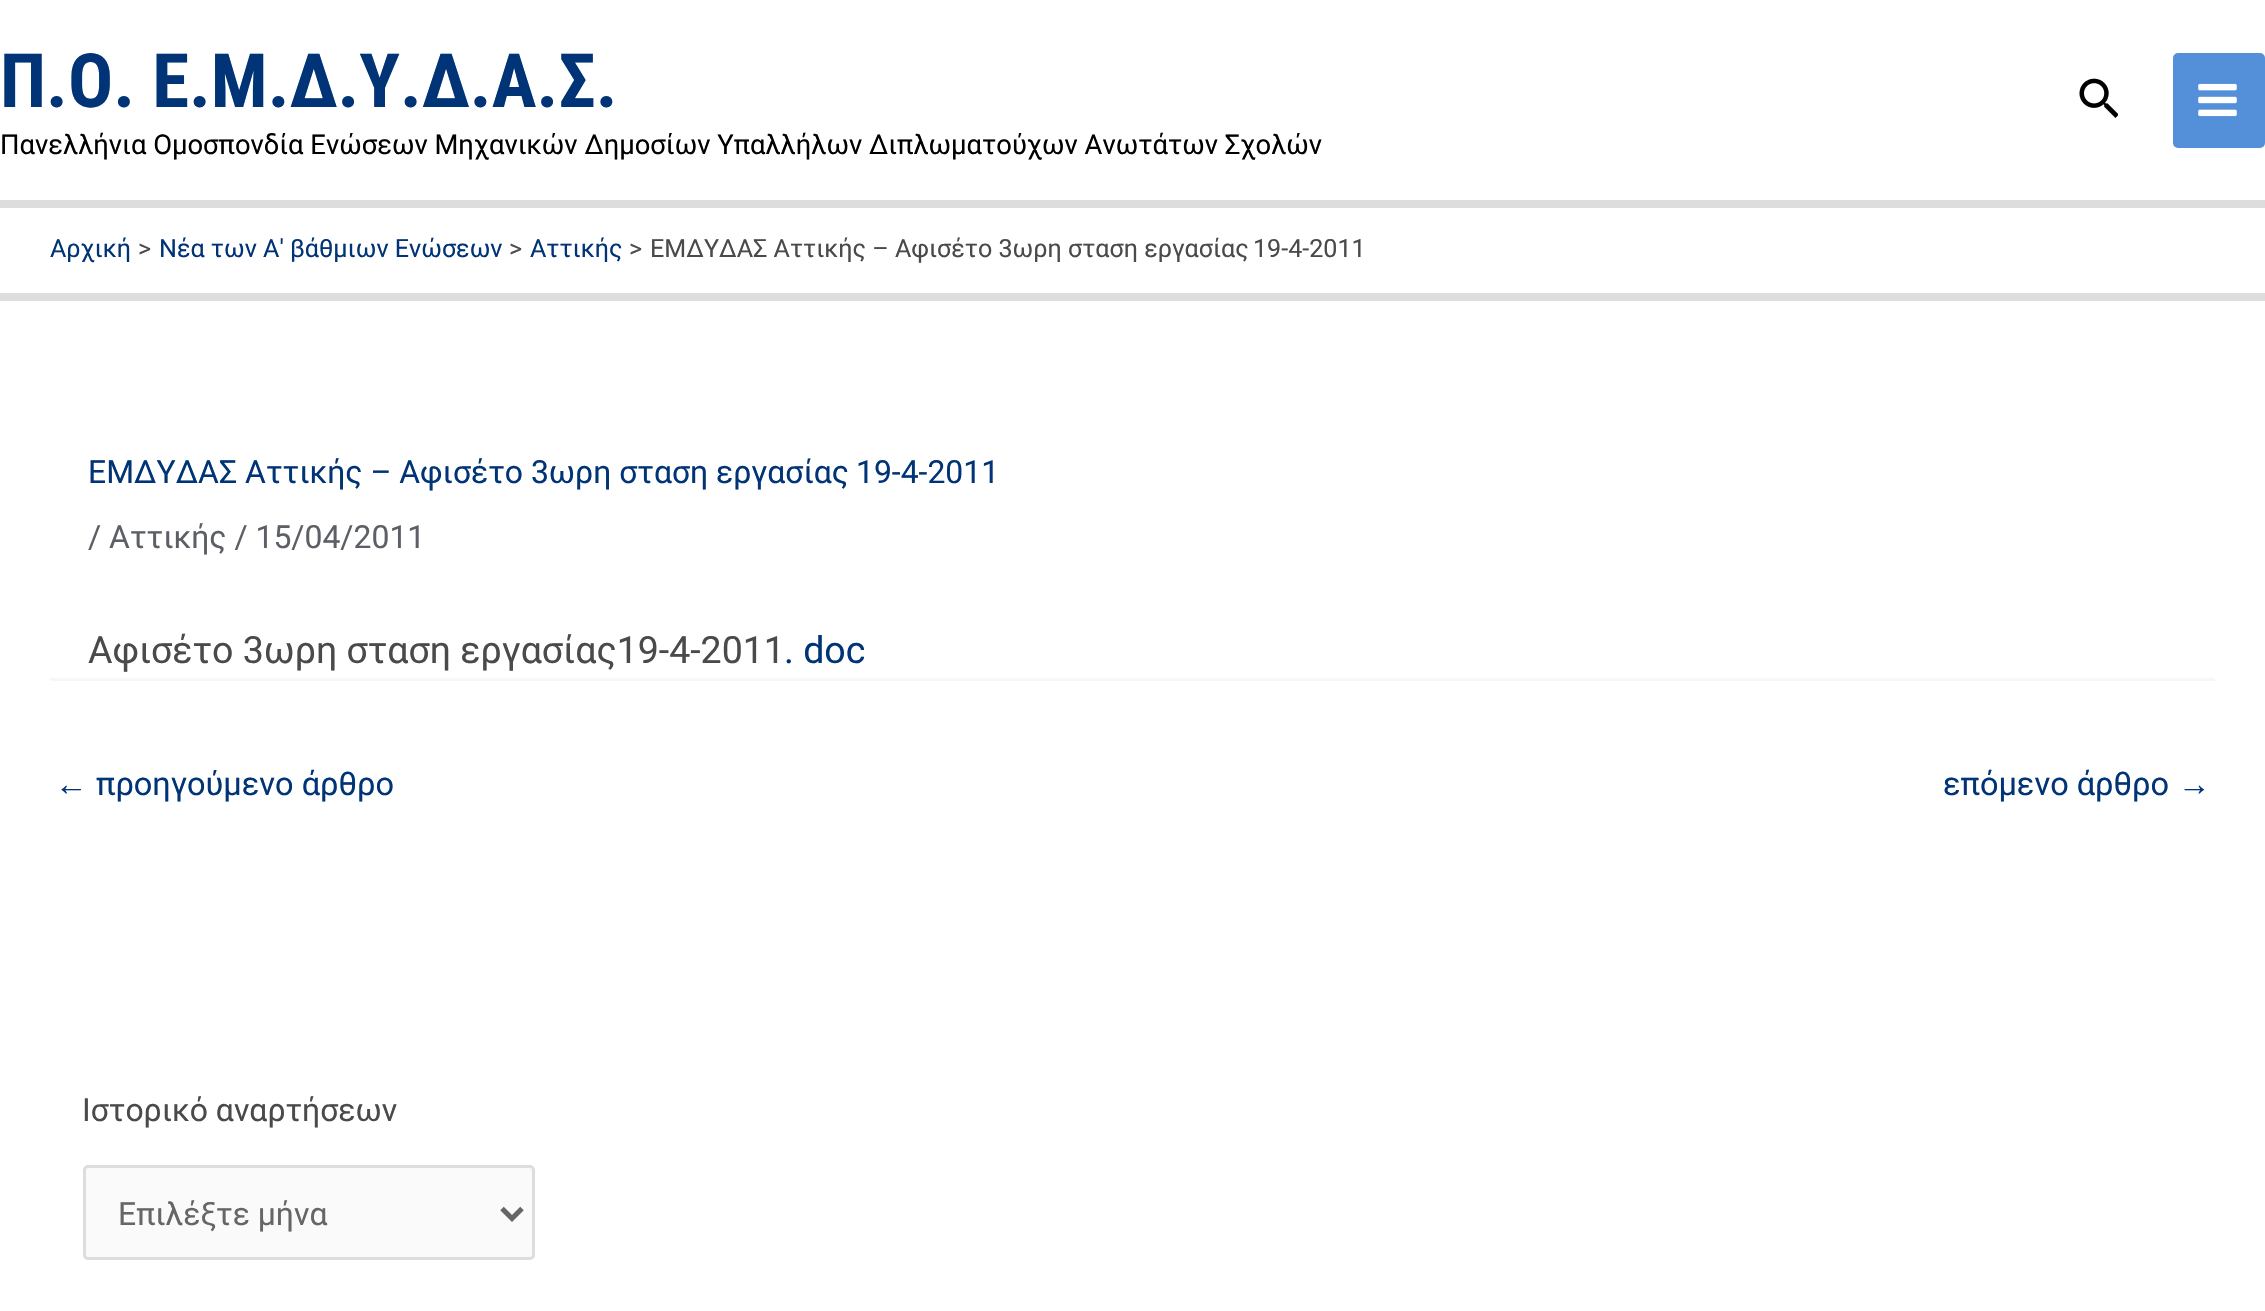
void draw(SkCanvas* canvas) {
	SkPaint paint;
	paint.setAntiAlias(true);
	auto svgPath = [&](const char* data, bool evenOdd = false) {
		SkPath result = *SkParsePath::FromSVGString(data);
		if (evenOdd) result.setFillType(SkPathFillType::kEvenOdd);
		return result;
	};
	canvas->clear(0xffffffff);
	paint.setColor(0xffdddddd);
	canvas->drawRect(SkRect::MakeXYWH(0, 200, 2265, 8), paint);
	SkFont f1(fontMgr->matchFamilyStyle("Roboto Condensed", SkFontStyle::Bold()), 75);
	f1.setSubpixel(true);
	paint.setColor(0xff003476);
	canvas->drawString("Π.Ο. Ε.Μ.Δ.Υ.Δ.Α.Σ.", 0, 107, f1, paint);
	SkFont f2(fontMgr->matchFamilyStyle("Roboto", SkFontStyle::Normal()), 27.35);
	f2.setSubpixel(true);
	paint.setColor(0xff000000);
	canvas->drawString("Πανελλήνια Ομοσπονδία Ενώσεων Μηχανικών Δημοσίων Υπαλλήλων Διπλωματούχων Ανωτάτων Σχολών", 0, 154, f2, paint);
	canvas->drawImageRect(SkImages::DeferredFromEncodedData(SkData::MakeFromFileName("img1.png")), SkRect::MakeXYWH(2079, 78, 39, 40), SkSamplingOptions());
	paint.setColor(0xff5390d9);
	canvas->drawRoundRect(SkRect::MakeXYWH(2173, 53, 92, 95), 5, 5, paint);
	canvas->drawImageRect(SkImages::DeferredFromEncodedData(SkData::MakeFromFileName("img2.png")), SkRect::MakeXYWH(2198, 83, 39, 34), SkSamplingOptions());
	paint.setColor(0xffdddddd);
	canvas->drawRect(SkRect::MakeXYWH(0, 293, 2265, 8), paint);
	SkFont f3(fontMgr->matchFamilyStyle("Roboto", SkFontStyle::Normal()), 25.1);
	f3.setSubpixel(true);
	paint.setColor(0xff003476);
	canvas->drawString("Αρχική", 50, 257, f3, paint);
	paint.setColor(0xff4a4a4a);
	canvas->drawString(">", 138, 257, f3, paint);
	paint.setColor(0xff003476);
	canvas->drawString("Νέα των Α' βάθμιων Ενώσεων", 159, 257, f3, paint);
	paint.setColor(0xff4a4a4a);
	canvas->drawString(">", 509, 257, f3, paint);
	paint.setColor(0xff003476);
	canvas->drawString("Αττικής", 530, 257, f3, paint);
	paint.setColor(0xff4a4a4a);
	canvas->drawString(">", 629, 257, f3, paint);
	canvas->drawString("ΕΜΔΥΔΑΣ Αττικής – Αφισέτο 3ωρη σταση εργασίας", 650, 257, f3, paint);
	canvas->drawString("19-4-2011", 1253, 257, f3, paint);
	paint.setColor(0xfff7f7f7);
	canvas->drawRect(SkRect::MakeXYWH(50, 678, 2165, 3), paint);
	SkFont f4(fontMgr->matchFamilyStyle("Roboto", SkFontStyle::Normal()), 31.9);
	f4.setSubpixel(true);
	paint.setColor(0xff003476);
	canvas->drawString("ΕΜΔΥΔΑΣ Αττικής – Αφισέτο 3ωρη σταση εργασίας", 88, 483, f4, paint);
	canvas->drawString("19-4-2011", 856, 483, f4, paint);
	paint.setColor(0xff5c6066);
	canvas->drawString("/ Αττικής / 15/04/2011", 88, 548, f4, paint);
	SkFont f5(fontMgr->matchFamilyStyle("Roboto", SkFontStyle::Normal()), 37.5);
	f5.setSubpixel(true);
	paint.setColor(0xff4a4a4a);
	canvas->drawString("Αφισέτο 3ωρη σταση εργασίας19-4-2011", 88, 663, f5, paint);
	paint.setColor(0xff003476);
	canvas->drawString(". doc", 784, 663, f5, paint);
	SkFont f6(fontMgr->matchFamilyStyle("Liberation Sans", SkFontStyle::Normal()), 32.5);
	f6.setSubpixel(true);
	canvas->drawString("←", 55, 795, f6, paint);
	SkFont f7(fontMgr->matchFamilyStyle("Roboto", SkFontStyle::Normal()), 32.5);
	f7.setSubpixel(true);
	canvas->drawString("προηγούμενο άρθρο", 96, 795, f7, paint);
	canvas->drawString("επόμενο άρθρο", 1943, 795, f7, paint);
	canvas->drawString("→", 2178, 795, f6, paint);
	paint.setColor(0xff4a4a4a);
	canvas->drawString("Ιστορικό αναρτήσεων", 82, 1121, f4, paint);
	paint.setColor(0xfffafafa);
	canvas->drawRoundRect(SkRect::MakeXYWH(84.5, 1166.5, 449, 92), 3.5, 3.5, paint);
	paint.setStroke(true);
	paint.setStrokeWidth(3);
	paint.setColor(0xffdddddd);
	canvas->drawRoundRect(SkRect::MakeXYWH(84.5, 1166.5, 449, 92), 3.5, 3.5, paint);
	paint.setStrokeWidth(5);
	paint.setColor(0xff666666);
	canvas->drawPath(svgPath("M502 1208.5L512 1218.5L522 1208.5"), paint);
	paint.setStroke(false);
	canvas->drawString("Επιλέξτε μήνα", 118, 1225, f4, paint);
}
